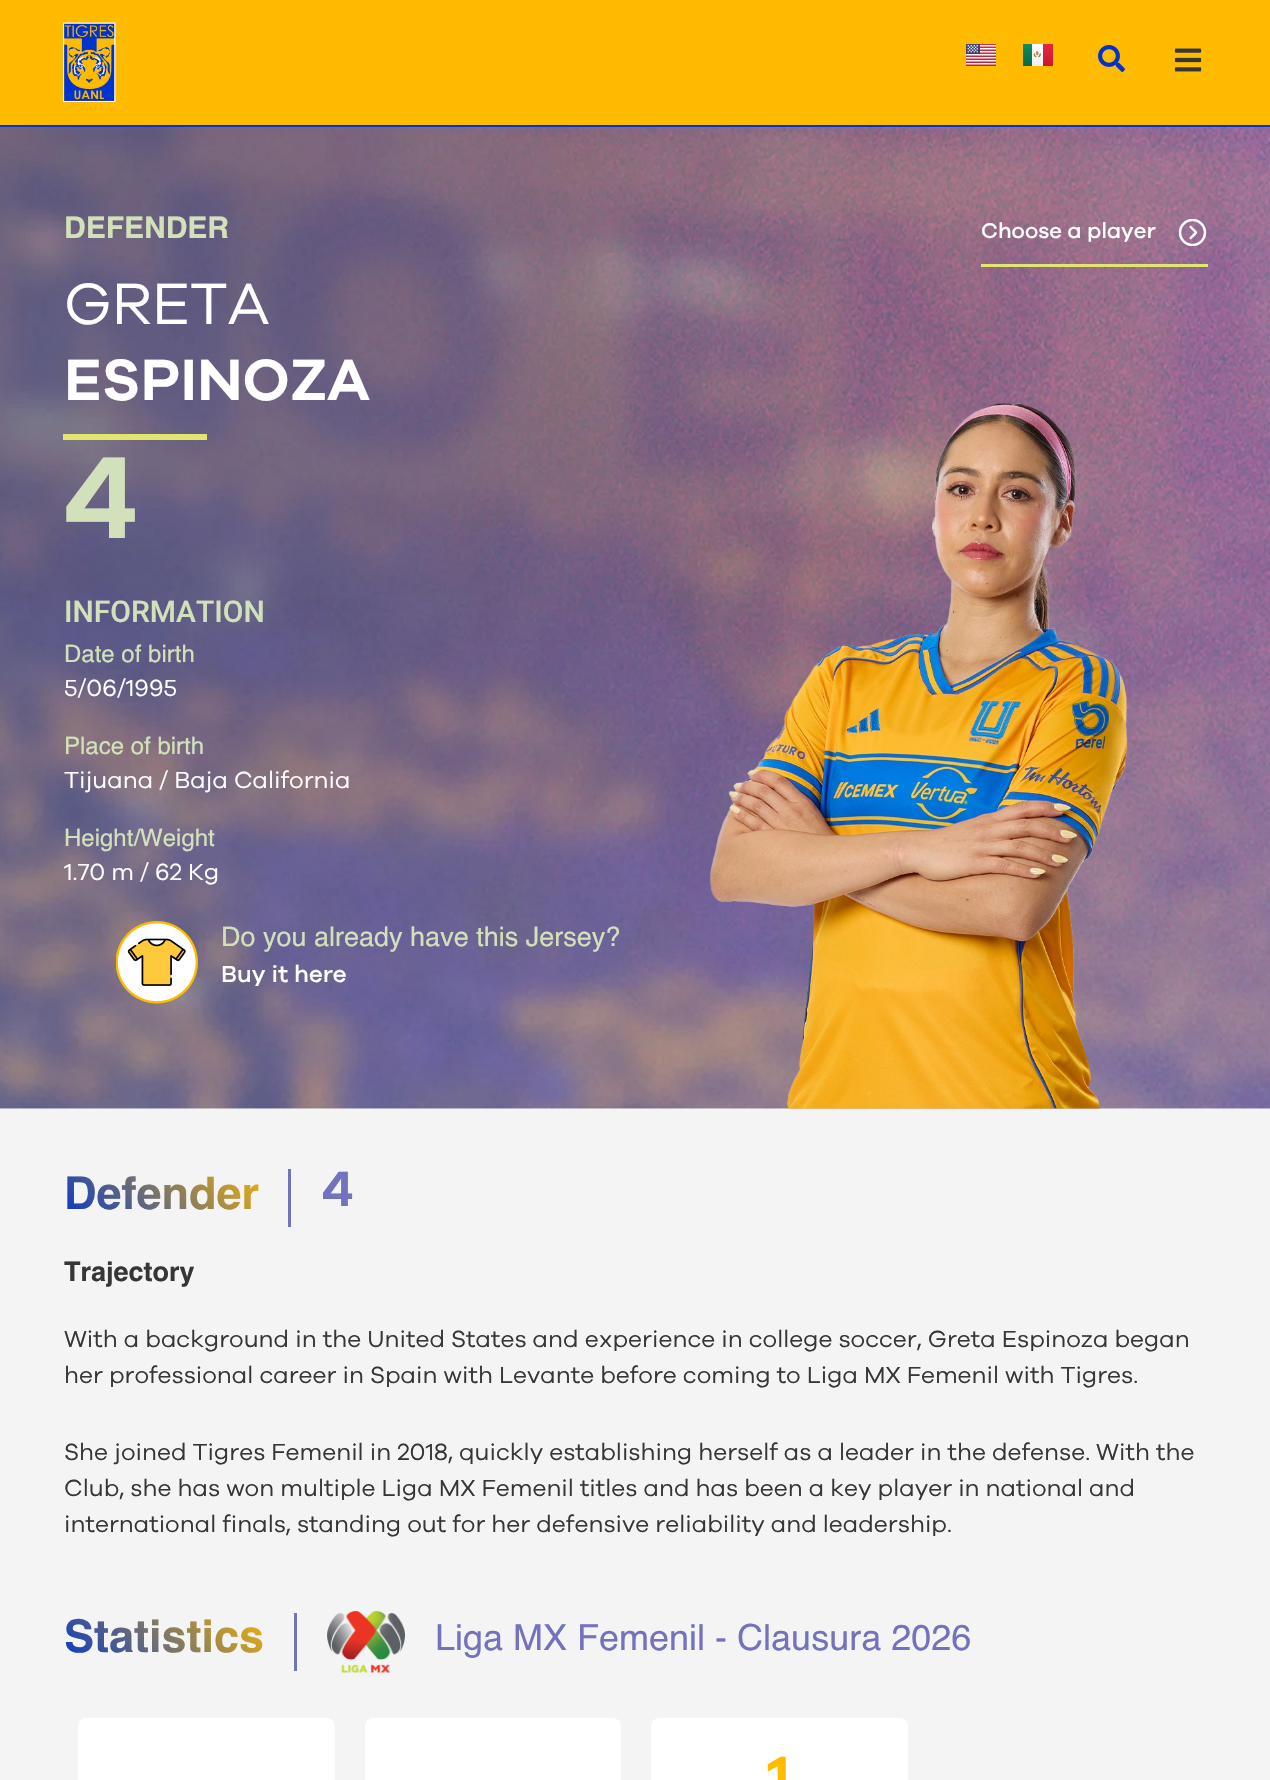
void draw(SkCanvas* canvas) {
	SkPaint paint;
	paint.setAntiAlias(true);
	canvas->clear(0xffffffff);
	paint.setColor(0xff0033cc);
	canvas->drawRect(SkRect::MakeXYWH(0, 125, 1270, 2), paint);
	paint.setColor(0xffffbb00);
	canvas->drawRect(SkRect::MakeXYWH(0, 0, 1270, 125), paint);
	canvas->drawImageRect(SkImages::DeferredFromEncodedData(SkData::MakeFromFileName("img1.png")), SkRect::MakeXYWH(63, 22, 53, 80), SkSamplingOptions());
	canvas->drawImageRect(SkImages::DeferredFromEncodedData(SkData::MakeFromFileName("img2.png")), SkRect::MakeXYWH(966, 44, 30, 22), SkSamplingOptions());
	canvas->drawImageRect(SkImages::DeferredFromEncodedData(SkData::MakeFromFileName("img3.png")), SkRect::MakeXYWH(1023, 44, 30, 22), SkSamplingOptions());
	canvas->drawImageRect(SkImages::DeferredFromEncodedData(SkData::MakeFromFileName("img4.png")), SkRect::MakeXYWH(1098, 45, 27, 27), SkSamplingOptions());
	canvas->drawImageRect(SkImages::DeferredFromEncodedData(SkData::MakeFromFileName("img5.png")), SkRect::MakeXYWH(1174, 48, 28, 24), SkSamplingOptions());
	canvas->drawImageRect(SkImages::DeferredFromEncodedData(SkData::MakeFromFileName("img6.png")), SkRect::MakeXYWH(0, 127, 1270, 982), SkSamplingOptions());
	SkFont f1(fontMgr->matchFamilyStyle("Helvetica", SkFontStyle::Bold()), 30);
	f1.setSubpixel(true);
	paint.setColor(0xffd2e1bb);
	canvas->drawString("DEFENDER", 64, 238, f1, paint);
	SkFont f2(fontMgr->matchFamilyStyle("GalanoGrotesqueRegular", SkFontStyle::Normal()), 60);
	f2.setSubpixel(true);
	paint.setColor(0xffffffff);
	canvas->drawString("GRETA", 64, 324, f2, paint);
	SkFont f3(fontMgr->matchFamilyStyle("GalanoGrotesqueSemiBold", SkFontStyle(600, SkFontStyle::kNormal_Width, SkFontStyle::kUpright_Slant)), 60);
	f3.setSubpixel(true);
	canvas->drawString("ESPINOZA", 64, 400, f3, paint);
	paint.setColor(0xffe2e56f);
	canvas->drawRect(SkRect::MakeXYWH(63, 434, 144, 6), paint);
	SkFont f4(fontMgr->matchFamilyStyle("GalanoGrotesqueSemiBold", SkFontStyle(600, SkFontStyle::kNormal_Width, SkFontStyle::kUpright_Slant)), 120);
	f4.setSubpixel(true);
	paint.setColor(0xffd2e1bb);
	canvas->drawString("4", 64, 538, f4, paint);
	SkFont f5(fontMgr->matchFamilyStyle("Roboto", SkFontStyle(500, SkFontStyle::kNormal_Width, SkFontStyle::kUpright_Slant)), 30);
	f5.setSubpixel(true);
	canvas->drawString("INFORMATION", 64, 622, f5, paint);
	SkFont f6(fontMgr->matchFamilyStyle("Helvetica", SkFontStyle::Normal()), 24);
	f6.setSubpixel(true);
	canvas->drawString("Date of birth", 64, 662, f6, paint);
	SkFont f7(fontMgr->matchFamilyStyle("GalanoGrotesqueRegular", SkFontStyle::Normal()), 24);
	f7.setSubpixel(true);
	paint.setColor(0xffffffff);
	canvas->drawString("5/06/1995", 64, 696, f7, paint);
	paint.setColor(0xffd2e1bb);
	canvas->drawString("Place of birth", 64, 754, f6, paint);
	paint.setColor(0xffffffff);
	canvas->drawString("Tijuana / Baja California", 64, 788, f7, paint);
	paint.setColor(0xffd2e1bb);
	canvas->drawString("Height/Weight", 64, 846, f6, paint);
	paint.setColor(0xffffffff);
	canvas->drawString("1.70 m / 62 Kg", 64, 880, f7, paint);
	canvas->drawImageRect(SkImages::DeferredFromEncodedData(SkData::MakeFromFileName("img7.png")), SkRect::MakeXYWH(116, 921, 82, 83), SkSamplingOptions());
	SkFont f8(fontMgr->matchFamilyStyle("Helvetica", SkFontStyle::Normal()), 27);
	f8.setSubpixel(true);
	paint.setColor(0xffd2e1bb);
	canvas->drawString("Do you already have this Jersey?", 221, 946, f8, paint);
	SkFont f9(fontMgr->matchFamilyStyle("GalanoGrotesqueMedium", SkFontStyle(500, SkFontStyle::kNormal_Width, SkFontStyle::kUpright_Slant)), 24);
	f9.setSubpixel(true);
	paint.setColor(0xffffffff);
	canvas->drawString("Buy it here", 221, 982, f9, paint);
	paint.setColor(0xffe2e56f);
	canvas->drawRect(SkRect::MakeXYWH(981, 264, 227, 3), paint);
	SkFont f10(fontMgr->matchFamilyStyle("GalanoGrotesqueMedium", SkFontStyle(500, SkFontStyle::kNormal_Width, SkFontStyle::kUpright_Slant)), 22);
	f10.setSubpixel(true);
	paint.setColor(0xffffffff);
	canvas->drawString("Choose a player", 981, 238, f10, paint);
	canvas->drawImageRect(SkImages::DeferredFromEncodedData(SkData::MakeFromFileName("img8.png")), SkRect::MakeXYWH(1178, 218, 29, 29), SkSamplingOptions());
	canvas->drawImageRect(SkImages::DeferredFromEncodedData(SkData::MakeFromFileName("img9.png")), SkRect::MakeXYWH(710, 403, 418, 706), SkSamplingOptions());
	paint.setColor(0xfff4f4f4);
	canvas->drawRect(SkRect::MakeXYWH(0, 1109, 1270, 671), paint);
	paint.setColor(0xff7373bd);
	canvas->drawRect(SkRect::MakeXYWH(288, 1169, 3, 58), paint);
	SkFont f11(fontMgr->matchFamilyStyle("Helvetica", SkFontStyle::Bold()), 45);
	f11.setSubpixel(true);
	{
		const SkColor colors[] = {0xff0033cc, 0xffffbb00};
		const float stops[] = {0, 0.85};
		const SkPoint ends[] = {{113, 1276}, {272, 1118}};
		paint.setShader(SkGradientShader::MakeLinear(ends, colors, stops, 2, SkTileMode::kClamp));
		paint.setAlpha(255);
	}
	canvas->drawString("Defender", 64, 1209, f11, paint);
	SkFont f12(fontMgr->matchFamilyStyle("GalanoGrotesqueSemiBold", SkFontStyle(600, SkFontStyle::kNormal_Width, SkFontStyle::kUpright_Slant)), 51);
	f12.setSubpixel(true);
	paint.setShader(nullptr);
	paint.setColor(0xff7373bd);
	canvas->drawString("4", 322, 1206, f12, paint);
	SkFont f13(fontMgr->matchFamilyStyle("Helvetica", SkFontStyle::Bold()), 27);
	f13.setSubpixel(true);
	paint.setColor(0xff363636);
	canvas->drawString("Trajectory", 64, 1281, f13, paint);
	canvas->drawString("With a background in the United States and experience in college soccer, Greta Espinoza began", 64, 1347, f7, paint);
	canvas->drawString("her professional career in Spain with Levante before coming to Liga MX Femenil with Tigres.", 64, 1383, f7, paint);
	canvas->drawString("She joined Tigres Femenil in 2018, quickly establishing herself as a leader in the defense. With the", 64, 1460, f7, paint);
	canvas->drawString("Club, she has won multiple Liga MX Femenil titles and has been a key player in national and", 64, 1496, f7, paint);
	canvas->drawString("international finals, standing out for her defensive reliability and leadership.", 64, 1532, f7, paint);
	paint.setColor(0xff7373bd);
	canvas->drawRect(SkRect::MakeXYWH(294, 1613, 3, 58), paint);
	{
		const SkColor colors[] = {0xff0033cc, 0xffffbb00};
		const float stops[] = {0, 0.85};
		const SkPoint ends[] = {{115, 1722}, {275, 1561}};
		paint.setShader(SkGradientShader::MakeLinear(ends, colors, stops, 2, SkTileMode::kClamp));
		paint.setAlpha(255);
	}
	canvas->drawString("Statistics", 64, 1652, f11, paint);
	canvas->drawImageRect(SkImages::DeferredFromEncodedData(SkData::MakeFromFileName("img10.png")), SkRect::MakeXYWH(327, 1611, 78, 62), SkSamplingOptions());
	SkFont f14(fontMgr->matchFamilyStyle("Helvetica", SkFontStyle::Normal()), 36);
	f14.setSubpixel(true);
	paint.setShader(nullptr);
	paint.setColor(0xff7373bd);
	canvas->drawString("Liga MX Femenil - Clausura 2026", 435, 1650, f14, paint);
	paint.setColor(0xffffffff);
	canvas->drawRoundRect(SkRect::MakeXYWH(78, 1718, 257, 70), 8, 8, paint);
	canvas->drawRoundRect(SkRect::MakeXYWH(365, 1718, 256, 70), 8, 8, paint);
	canvas->drawRoundRect(SkRect::MakeXYWH(651, 1718, 257, 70), 8, 8, paint);
	SkFont f15(fontMgr->matchFamilyStyle("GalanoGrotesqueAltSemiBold", SkFontStyle(600, SkFontStyle::kNormal_Width, SkFontStyle::kUpright_Slant)), 60);
	f15.setSubpixel(true);
	paint.setColor(0xffffbb00);
	canvas->drawString("1", 768, 1797, f15, paint);
}
